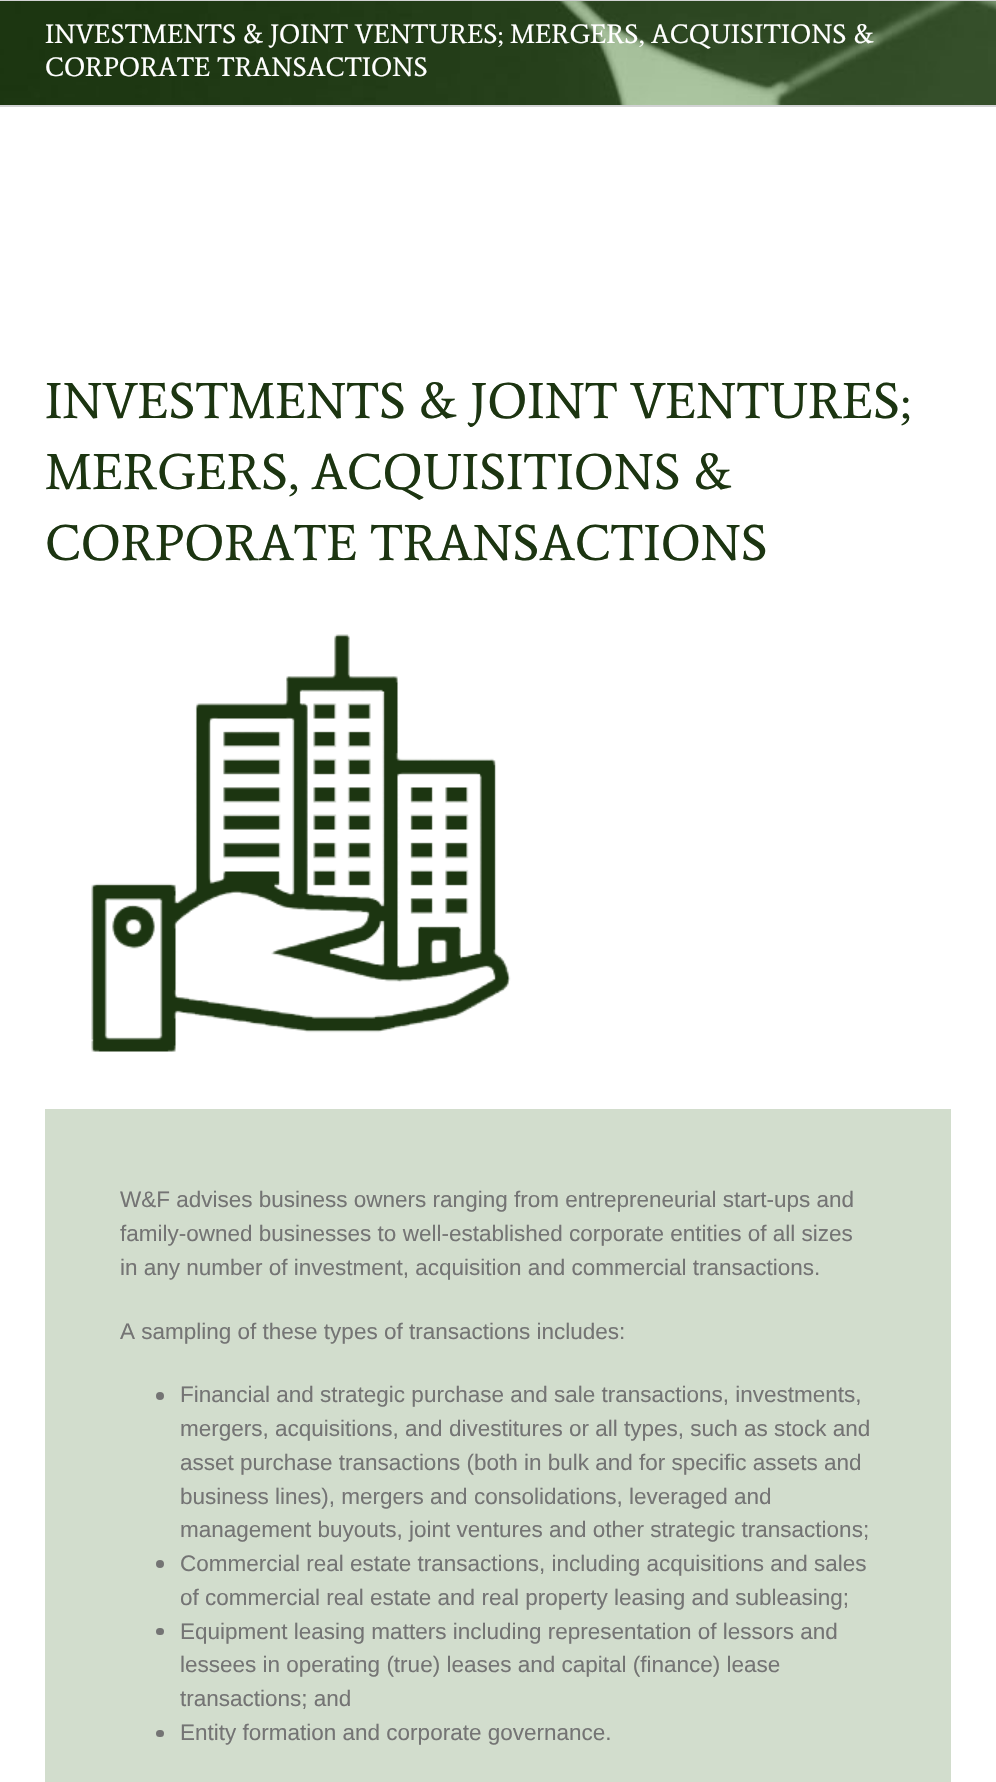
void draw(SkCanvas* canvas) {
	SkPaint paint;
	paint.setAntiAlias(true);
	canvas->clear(0xffffffff);
	canvas->drawImageRect(SkImages::DeferredFromEncodedData(SkData::MakeFromFileName("img1.png")), SkRect::MakeXYWH(0, 1, 996, 104), SkSamplingOptions());
	paint.setColor(0xffd2d3d4);
	canvas->drawRect(SkRect::MakeXYWH(0, 0, 996, 1), paint);
	canvas->drawRect(SkRect::MakeXYWH(0, 105, 996, 2), paint);
	SkFont f1(fontMgr->matchFamilyStyle("Average", SkFontStyle::Normal()), 27);
	f1.setSubpixel(true);
	paint.setColor(0xffffffff);
	canvas->drawString("INVESTMENTS & JOINT VENTURES; MERGERS, ACQUISITIONS &", 45, 43, f1, paint);
	canvas->drawString("CORPORATE TRANSACTIONS", 45, 76, f1, paint);
	SkFont f2(fontMgr->matchFamilyStyle("Average", SkFontStyle::Normal()), 51);
	f2.setSubpixel(true);
	paint.setColor(0xff1c3511);
	canvas->drawString("INVESTMENTS & JOINT VENTURES;", 45, 418, f2, paint);
	canvas->drawString("MERGERS, ACQUISITIONS &", 45, 489, f2, paint);
	canvas->drawString("CORPORATE TRANSACTIONS", 45, 560, f2, paint);
	canvas->drawImageRect(SkImages::DeferredFromEncodedData(SkData::MakeFromFileName("img2.png")), SkRect::MakeXYWH(91, 634, 420, 418), SkSamplingOptions());
	paint.setColor(0xffd2ddcd);
	canvas->drawRect(SkRect::MakeXYWH(45, 1109, 906, 673), paint);
	SkFont f3(fontMgr->matchFamilyStyle("Liberation Sans", SkFontStyle::Normal()), 22.5);
	f3.setSubpixel(true);
	paint.setColor(0xff747474);
	canvas->drawString("W&F advises business owners ranging from entrepreneurial start-ups and", 120, 1207, f3, paint);
	canvas->drawString("family-owned businesses to well-established corporate entities of all sizes", 120, 1241, f3, paint);
	canvas->drawString("in any number of investment, acquisition and commercial transactions.", 120, 1275, f3, paint);
	canvas->drawString("A sampling of these types of transactions includes:", 120, 1339, f3, paint);
	canvas->drawCircle(160, 1396, 4, paint);
	canvas->drawString("Financial and strategic purchase and sale transactions, investments,", 180, 1402, f3, paint);
	canvas->drawString("mergers, acquisitions, and divestitures or all types, such as stock and", 180, 1436, f3, paint);
	canvas->drawString("asset purchase transactions (both in bulk and for specific assets and", 180, 1470, f3, paint);
	canvas->drawString("business lines), mergers and consolidations, leveraged and", 180, 1504, f3, paint);
	canvas->drawString("management buyouts, joint ventures and other strategic transactions;", 180, 1537, f3, paint);
	canvas->drawCircle(160, 1564, 4, paint);
	canvas->drawString("Commercial real estate transactions, including acquisitions and sales", 180, 1571, f3, paint);
	canvas->drawString("of commercial real estate and real property leasing and subleasing;", 180, 1605, f3, paint);
	canvas->drawRoundRect(SkRect::MakeXYWH(156, 1628, 8, 7), 3.5, 3.5, paint);
	canvas->drawString("Equipment leasing matters including representation of lessors and", 180, 1639, f3, paint);
	canvas->drawString("lessees in operating (true) leases and capital (finance) lease", 180, 1672, f3, paint);
	canvas->drawString("transactions; and", 180, 1706, f3, paint);
	canvas->drawRoundRect(SkRect::MakeXYWH(156, 1730, 8, 7), 3.5, 3.5, paint);
	canvas->drawString("Entity formation and corporate governance.", 180, 1740, f3, paint);
}
